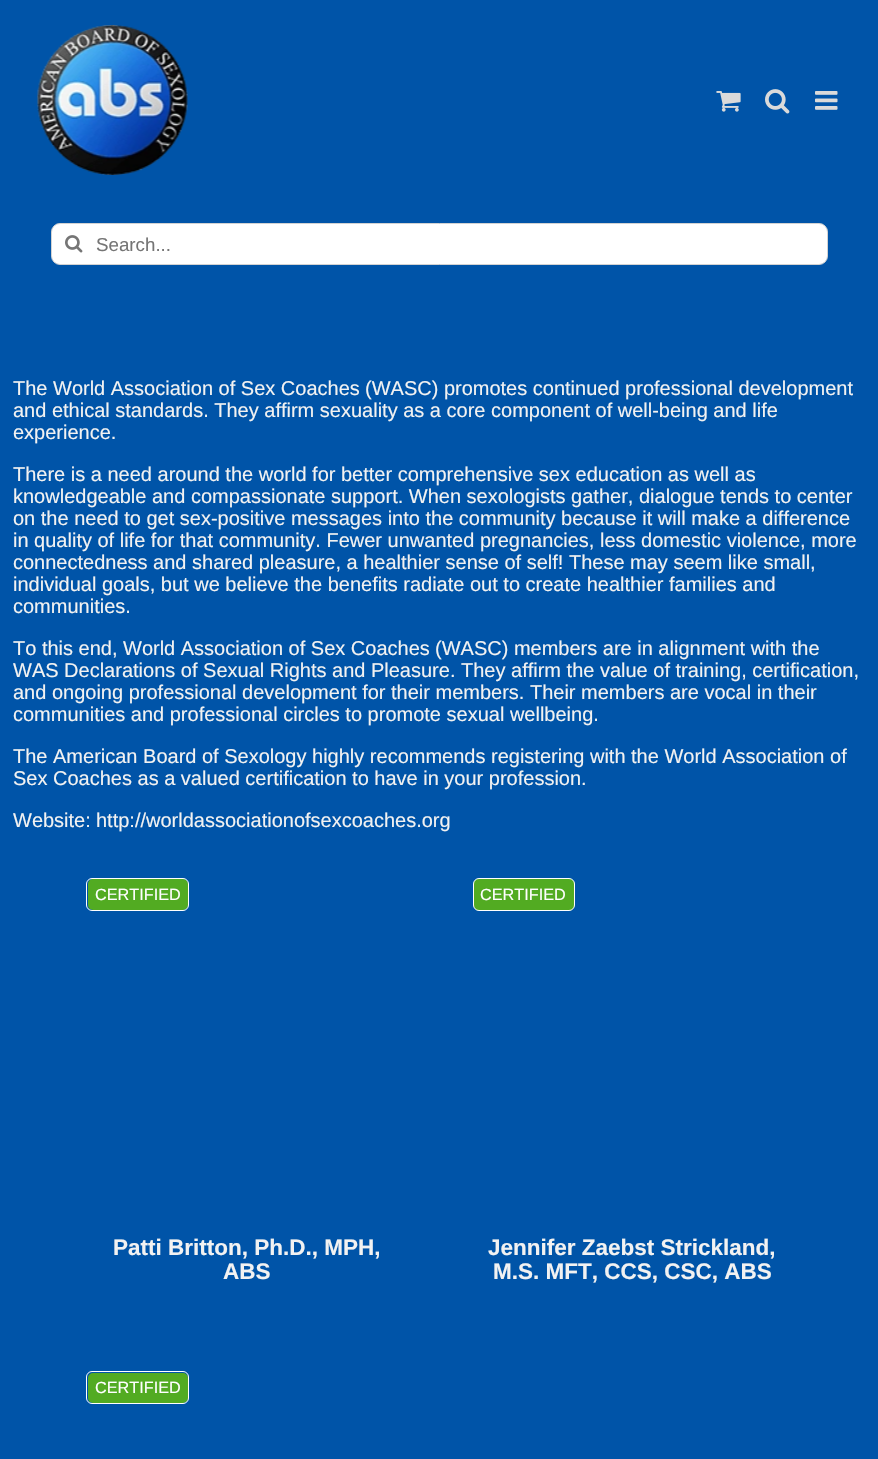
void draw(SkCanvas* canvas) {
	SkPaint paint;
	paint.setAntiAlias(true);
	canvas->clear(0xff0054a8);
	canvas->drawImageRect(SkImages::DeferredFromEncodedData(SkData::MakeFromFileName("img1.png")), SkRect::MakeXYWH(37, 25, 151, 150), SkSamplingOptions());
	canvas->drawImageRect(SkImages::DeferredFromEncodedData(SkData::MakeFromFileName("img2.png")), SkRect::MakeXYWH(716, 91, 25, 21), SkSamplingOptions());
	canvas->drawImageRect(SkImages::DeferredFromEncodedData(SkData::MakeFromFileName("img3.png")), SkRect::MakeXYWH(765, 89, 25, 25), SkSamplingOptions());
	canvas->drawImageRect(SkImages::DeferredFromEncodedData(SkData::MakeFromFileName("img4.png")), SkRect::MakeXYWH(815, 91, 23, 19), SkSamplingOptions());
	paint.setColor(0xffffffff);
	canvas->drawRoundRect(SkRect::MakeXYWH(51.5, 223.5, 776, 41), 8.5, 8.5, paint);
	paint.setStroke(true);
	paint.setStrokeWidth(1);
	paint.setColor(0xffd2d2d2);
	canvas->drawRoundRect(SkRect::MakeXYWH(51.5, 223.5, 776, 41), 8.5, 8.5, paint);
	canvas->drawImageRect(SkImages::DeferredFromEncodedData(SkData::MakeFromFileName("img5.png")), SkRect::MakeXYWH(65, 235, 18, 18), SkSamplingOptions());
	SkFont f1(fontMgr->matchFamilyStyle("Liberation Sans", SkFontStyle::Normal()), 18.75);
	f1.setSubpixel(true);
	paint.setStroke(false);
	paint.setColor(0xff757575);
	canvas->drawString("Search...", 96, 251, f1, paint);
	SkFont f2(fontMgr->matchFamilyStyle("Liberation Sans", SkFontStyle::Normal()), 20);
	f2.setSubpixel(true);
	paint.setColor(0xfff2f2f2);
	canvas->drawString("The", 13, 395, f2, paint);
	canvas->drawString("World Association of Sex Coaches", 53, 395, f2, paint);
	canvas->drawString("(WASC) promotes continued professional development", 365, 395, f2, paint);
	canvas->drawString("and ethical standards. They affirm sexuality as a core component of well-being and life", 13, 417, f2, paint);
	canvas->drawString("experience.", 13, 439, f2, paint);
	canvas->drawString("There is a need around the world for better comprehensive sex education as well as", 13, 481, f2, paint);
	canvas->drawString("knowledgeable and compassionate support. When sexologists gather, dialogue tends to center", 13, 503, f2, paint);
	canvas->drawString("on the need to get sex-positive messages into the community because it will make a difference", 13, 525, f2, paint);
	canvas->drawString("in quality of life for that community. Fewer unwanted pregnancies, less domestic violence, more", 13, 547, f2, paint);
	canvas->drawString("connectedness and shared pleasure, a healthier sense of self! These may seem like small,", 13, 569, f2, paint);
	canvas->drawString("individual goals, but we believe the benefits radiate out to create healthier families and", 13, 591, f2, paint);
	canvas->drawString("communities.", 13, 613, f2, paint);
	canvas->drawString("To this end,", 13, 655, f2, paint);
	canvas->drawString("World Association of Sex Coaches", 123, 655, f2, paint);
	canvas->drawString("(WASC) members are in alignment with the", 435, 655, f2, paint);
	canvas->drawString("WAS Declarations of Sexual Rights and Pleasure. They affirm the value of training, certification,", 13, 677, f2, paint);
	canvas->drawString("and ongoing professional development for their members. Their members are vocal in their", 13, 699, f2, paint);
	canvas->drawString("communities and professional circles to promote sexual wellbeing.", 13, 721, f2, paint);
	canvas->drawString("The American Board of Sexology highly recommends registering with the World Association of", 13, 763, f2, paint);
	canvas->drawString("Sex Coaches as a valued certification to have in your profession.", 13, 785, f2, paint);
	canvas->drawString("Website:", 13, 827, f2, paint);
	canvas->drawString("http://worldassociationofsexcoaches.org", 96, 827, f2, paint);
	paint.setColor(0xff52ab22);
	canvas->drawRoundRect(SkRect::MakeXYWH(88, 879, 100, 31), 5, 5, paint);
	paint.setStroke(true);
	paint.setColor(0xffffffff);
	canvas->drawRoundRect(SkRect::MakeXYWH(86.5, 878.5, 102, 32), 5.5, 5.5, paint);
	SkFont f3(fontMgr->matchFamilyStyle("Liberation Sans", SkFontStyle::Normal()), 16.25);
	f3.setSubpixel(true);
	paint.setStroke(false);
	canvas->drawString("CERTIFIED", 95, 900, f3, paint);
	SkFont f4(fontMgr->matchFamilyStyle("Liberation Sans", SkFontStyle::Bold()), 22.5);
	f4.setSubpixel(true);
	paint.setColor(0xfff2f2f2);
	canvas->drawString("Patti Britton, Ph.D., MPH,", 113, 1255, f4, paint);
	canvas->drawString("ABS", 223, 1279, f4, paint);
	paint.setColor(0xff52ab22);
	canvas->drawRoundRect(SkRect::MakeXYWH(473.5, 878.5, 101, 32), 5.5, 5.5, paint);
	paint.setStroke(true);
	paint.setColor(0xffffffff);
	canvas->drawRoundRect(SkRect::MakeXYWH(473.5, 878.5, 101, 32), 5.5, 5.5, paint);
	paint.setStroke(false);
	canvas->drawString("CERTIFIED", 480, 900, f3, paint);
	paint.setColor(0xfff2f2f2);
	canvas->drawString("Jennifer Zaebst Strickland,", 488, 1255, f4, paint);
	canvas->drawString("M.S. MFT, CCS, CSC, ABS", 493, 1279, f4, paint);
	paint.setColor(0xff52ab22);
	canvas->drawRoundRect(SkRect::MakeXYWH(88, 1373, 100, 30), 5, 5, paint);
	paint.setStroke(true);
	paint.setColor(0xffffffff);
	canvas->drawRoundRect(SkRect::MakeXYWH(86.5, 1371.5, 102, 32), 5.5, 5.5, paint);
	paint.setStroke(false);
	canvas->drawString("CERTIFIED", 95, 1393, f3, paint);
}
